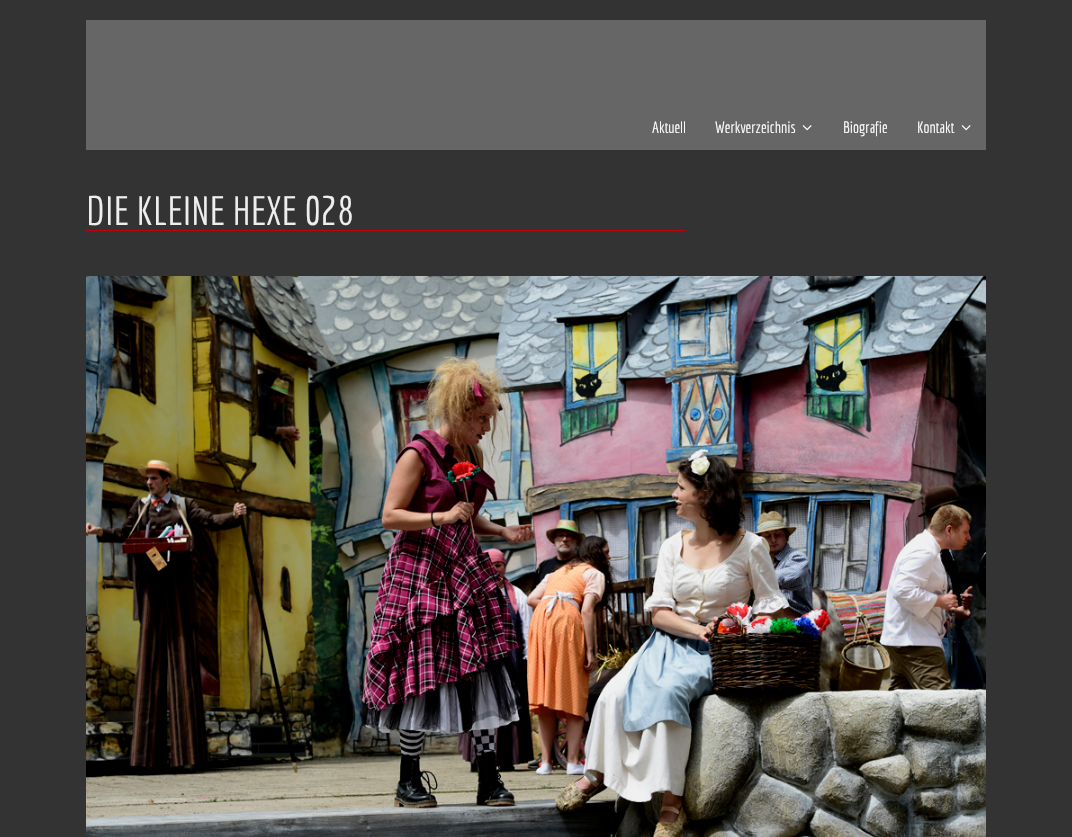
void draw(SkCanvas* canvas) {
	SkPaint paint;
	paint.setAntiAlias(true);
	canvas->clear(0xff333333);
	paint.setColor(0xff666666);
	canvas->drawRect(SkRect::MakeXYWH(86, 20, 900, 130), paint);
	SkFont f1(fontMgr->matchFamilyStyle("Economica", SkFontStyle::Normal()), 16);
	f1.setSubpixel(true);
	paint.setColor(0xffffffff);
	canvas->drawString("Aktuell", 652, 133, f1, paint);
	canvas->drawString("Werkverzeichnis", 715, 133, f1, paint);
	canvas->drawImageRect(SkImages::DeferredFromEncodedData(SkData::MakeFromFileName("img1.png")), SkRect::MakeXYWH(802, 125, 10, 6), SkSamplingOptions());
	canvas->drawString("Biografie", 843, 133, f1, paint);
	canvas->drawString("Kontakt", 917, 133, f1, paint);
	canvas->drawImageRect(SkImages::DeferredFromEncodedData(SkData::MakeFromFileName("img1.png")), SkRect::MakeXYWH(961, 125, 10, 6), SkSamplingOptions());
	SkFont f2(fontMgr->matchFamilyStyle("Economica", SkFontStyle::Normal()), 40);
	f2.setSubpixel(true);
	paint.setColor(0xffeeeeee);
	canvas->drawString("DIE KLEINE HEXE 028", 86, 225, f2, paint);
	paint.setColor(0xffbd040d);
	canvas->drawRect(SkRect::MakeXYWH(86, 230, 599, 1), paint);
	canvas->drawImageRect(SkImages::DeferredFromEncodedData(SkData::MakeFromFileName("img2.png")), SkRect::MakeXYWH(86, 276, 900, 561), SkSamplingOptions());
}
